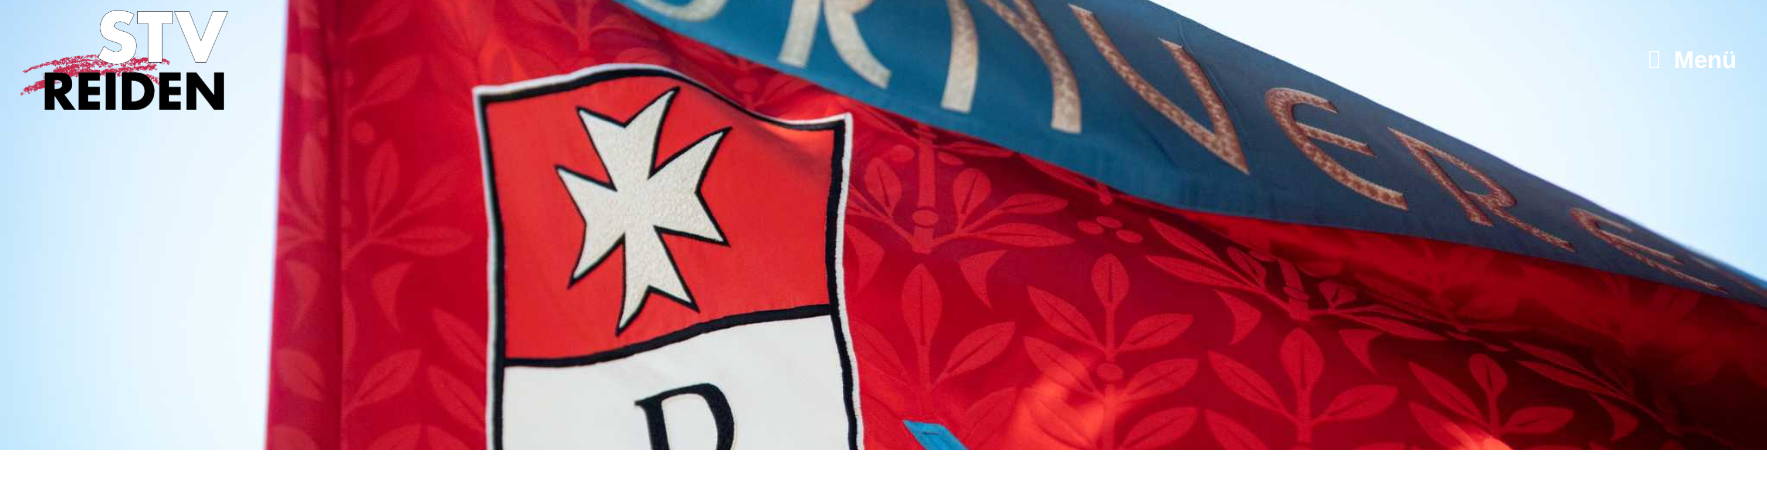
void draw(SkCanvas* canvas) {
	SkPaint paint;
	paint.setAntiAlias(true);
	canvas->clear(0xffffffff);
	canvas->drawImageRect(SkImages::DeferredFromEncodedData(SkData::MakeFromFileName("img1.png")), SkRect::MakeXYWH(0, 0, 1767, 450), SkSamplingOptions());
	canvas->drawImageRect(SkImages::DeferredFromEncodedData(SkData::MakeFromFileName("img2.png")), SkRect::MakeXYWH(20, 10, 208, 100), SkSamplingOptions());
	canvas->drawImageRect(SkImages::DeferredFromEncodedData(SkData::MakeFromFileName("img3.png")), SkRect::MakeXYWH(1649, 50, 11, 18), SkSamplingOptions());
	SkFont f1(fontMgr->matchFamilyStyle("Liberation Sans", SkFontStyle::Bold()), 24);
	f1.setSubpixel(true);
	paint.setColor(0xffffffff);
	canvas->drawString("Menü", 1674, 68, f1, paint);
}
